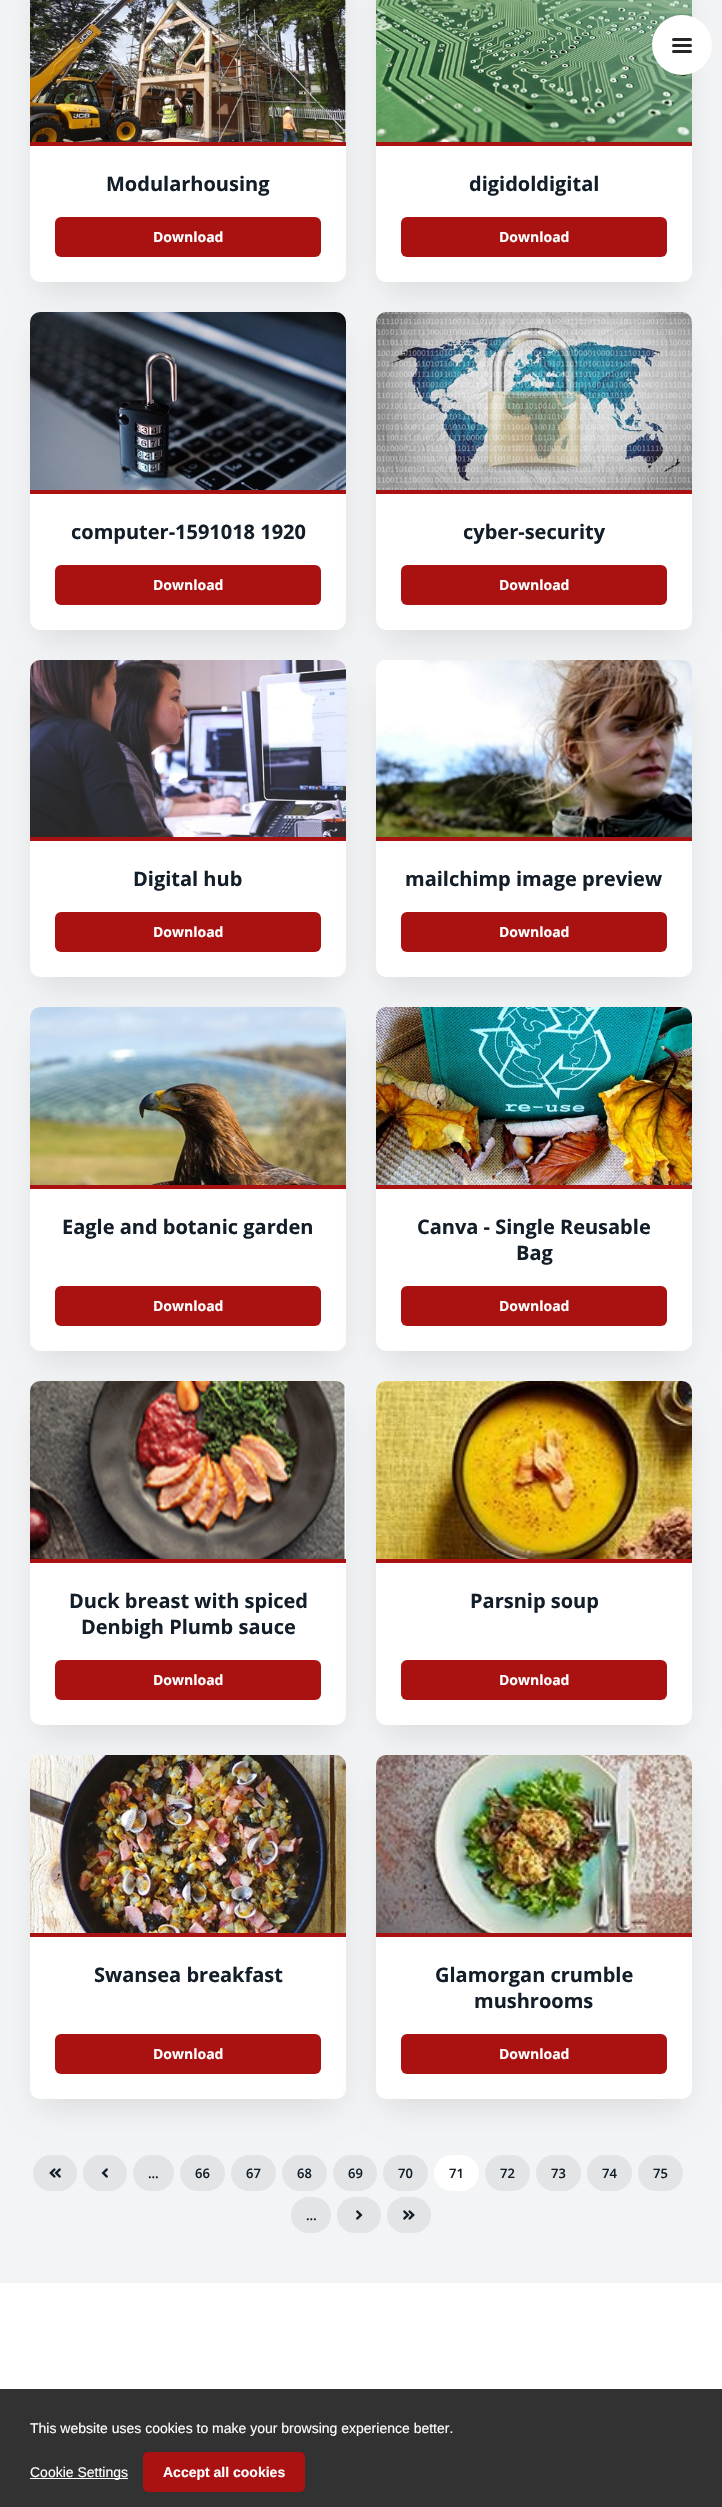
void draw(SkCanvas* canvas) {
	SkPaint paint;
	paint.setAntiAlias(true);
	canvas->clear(0xfff2f4f5);
	paint.setColor(0x1f000000);
	paint.setMaskFilter(SkMaskFilter::MakeBlur(kNormal_SkBlurStyle, 15));
	canvas->drawRect(SkRect::MakeXYWH(40, -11, 296, 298), paint);
	paint.setMaskFilter(nullptr);
	paint.setColor(0xffffffff);
	canvas->drawRoundRect(SkRect::MakeXYWH(30, -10, 316, 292), 10, 10, paint);
	paint.setColor(0xffaa1111);
	canvas->drawRect(SkRect::MakeXYWH(30, 142, 316, 4), paint);
	canvas->drawImageRect(SkImages::DeferredFromEncodedData(SkData::MakeFromFileName("img1.png")), SkRect::MakeXYWH(30, 0, 316, 142), SkSamplingOptions());
	paint.setColor(0x1f000000);
	paint.setMaskFilter(SkMaskFilter::MakeBlur(kNormal_SkBlurStyle, 15));
	canvas->drawRect(SkRect::MakeXYWH(386, -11, 296, 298), paint);
	paint.setMaskFilter(nullptr);
	paint.setColor(0xffffffff);
	canvas->drawRoundRect(SkRect::MakeXYWH(376, -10, 316, 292), 10, 10, paint);
	canvas->drawImageRect(SkImages::DeferredFromEncodedData(SkData::MakeFromFileName("img2.png")), SkRect::MakeXYWH(376, 0, 316, 142), SkSamplingOptions());
	canvas->drawCircle(682, 45, 30, paint);
	paint.setColor(0xff262626);
	canvas->drawRoundRect(SkRect::MakeXYWH(672, 44, 20, 3), 1.5, 1.5, paint);
	canvas->drawRoundRect(SkRect::MakeXYWH(672, 38, 20, 3), 1.5, 1.5, paint);
	canvas->drawRoundRect(SkRect::MakeXYWH(672, 50, 20, 3), 1.5, 1.5, paint);
	SkFont f1(fontMgr->matchFamilyStyle("Open Sans", SkFontStyle::Bold()), 20);
	f1.setSubpixel(true);
	paint.setColor(0xff131e29);
	canvas->drawString("Modularhousing", 106, 191, f1, paint);
	paint.setColor(0xffaa1111);
	canvas->drawRoundRect(SkRect::MakeXYWH(55, 217, 266, 40), 6, 6, paint);
	SkFont f2(fontMgr->matchFamilyStyle("Open Sans", SkFontStyle::Bold()), 14);
	f2.setSubpixel(true);
	paint.setColor(0xffffffff);
	canvas->drawString("Download", 153, 242, f2, paint);
	paint.setColor(0xffaa1111);
	canvas->drawRect(SkRect::MakeXYWH(376, 142, 316, 4), paint);
	paint.setColor(0xff131e29);
	canvas->drawString("digidoldigital", 469, 191, f1, paint);
	paint.setColor(0xffaa1111);
	canvas->drawRoundRect(SkRect::MakeXYWH(401, 217, 266, 40), 6, 6, paint);
	paint.setColor(0xffffffff);
	canvas->drawString("Download", 499, 242, f2, paint);
	paint.setColor(0x1f000000);
	paint.setMaskFilter(SkMaskFilter::MakeBlur(kNormal_SkBlurStyle, 15));
	canvas->drawRect(SkRect::MakeXYWH(40, 337, 296, 298), paint);
	paint.setMaskFilter(nullptr);
	paint.setColor(0xffffffff);
	canvas->drawRoundRect(SkRect::MakeXYWH(30, 312, 316, 318), 10, 10, paint);
	paint.setColor(0xffaa1111);
	canvas->drawRect(SkRect::MakeXYWH(30, 490, 316, 4), paint);
	canvas->drawImageRect(SkImages::DeferredFromEncodedData(SkData::MakeFromFileName("img3.png")), SkRect::MakeXYWH(30, 312, 316, 178), SkSamplingOptions());
	paint.setColor(0xff131e29);
	canvas->drawString("computer-1591018 1920", 71, 539, f1, paint);
	paint.setColor(0xffaa1111);
	canvas->drawRoundRect(SkRect::MakeXYWH(55, 565, 266, 40), 6, 6, paint);
	paint.setColor(0xffffffff);
	canvas->drawString("Download", 153, 590, f2, paint);
	paint.setColor(0x1f000000);
	paint.setMaskFilter(SkMaskFilter::MakeBlur(kNormal_SkBlurStyle, 15));
	canvas->drawRect(SkRect::MakeXYWH(386, 337, 296, 298), paint);
	paint.setMaskFilter(nullptr);
	paint.setColor(0xffffffff);
	canvas->drawRoundRect(SkRect::MakeXYWH(376, 312, 316, 318), 10, 10, paint);
	paint.setColor(0xffaa1111);
	canvas->drawRect(SkRect::MakeXYWH(376, 490, 316, 4), paint);
	canvas->drawImageRect(SkImages::DeferredFromEncodedData(SkData::MakeFromFileName("img4.png")), SkRect::MakeXYWH(376, 312, 316, 178), SkSamplingOptions());
	paint.setColor(0xff131e29);
	canvas->drawString("cyber-security", 463, 539, f1, paint);
	paint.setColor(0xffaa1111);
	canvas->drawRoundRect(SkRect::MakeXYWH(401, 565, 266, 40), 6, 6, paint);
	paint.setColor(0xffffffff);
	canvas->drawString("Download", 499, 590, f2, paint);
	paint.setColor(0x1f000000);
	paint.setMaskFilter(SkMaskFilter::MakeBlur(kNormal_SkBlurStyle, 15));
	canvas->drawRect(SkRect::MakeXYWH(40, 685, 296, 297), paint);
	paint.setMaskFilter(nullptr);
	paint.setColor(0xffffffff);
	canvas->drawRoundRect(SkRect::MakeXYWH(30, 660, 316, 317), 10, 10, paint);
	paint.setColor(0xffaa1111);
	canvas->drawRect(SkRect::MakeXYWH(30, 837, 316, 4), paint);
	canvas->drawImageRect(SkImages::DeferredFromEncodedData(SkData::MakeFromFileName("img5.png")), SkRect::MakeXYWH(30, 660, 316, 177), SkSamplingOptions());
	paint.setColor(0xff131e29);
	canvas->drawString("Digital hub", 133, 886, f1, paint);
	paint.setColor(0xffaa1111);
	canvas->drawRoundRect(SkRect::MakeXYWH(55, 912, 266, 40), 6, 6, paint);
	paint.setColor(0xffffffff);
	canvas->drawString("Download", 153, 937, f2, paint);
	paint.setColor(0x1f000000);
	paint.setMaskFilter(SkMaskFilter::MakeBlur(kNormal_SkBlurStyle, 15));
	canvas->drawRect(SkRect::MakeXYWH(386, 685, 296, 297), paint);
	paint.setMaskFilter(nullptr);
	paint.setColor(0xffffffff);
	canvas->drawRoundRect(SkRect::MakeXYWH(376, 660, 316, 317), 10, 10, paint);
	paint.setColor(0xffaa1111);
	canvas->drawRect(SkRect::MakeXYWH(376, 837, 316, 4), paint);
	canvas->drawImageRect(SkImages::DeferredFromEncodedData(SkData::MakeFromFileName("img6.png")), SkRect::MakeXYWH(376, 660, 316, 177), SkSamplingOptions());
	paint.setColor(0xff131e29);
	canvas->drawString("mailchimp image preview", 405, 886, f1, paint);
	paint.setColor(0xffaa1111);
	canvas->drawRoundRect(SkRect::MakeXYWH(401, 912, 266, 40), 6, 6, paint);
	paint.setColor(0xffffffff);
	canvas->drawString("Download", 499, 937, f2, paint);
	paint.setColor(0x1f000000);
	paint.setMaskFilter(SkMaskFilter::MakeBlur(kNormal_SkBlurStyle, 15));
	canvas->drawRect(SkRect::MakeXYWH(40, 1032, 296, 324), paint);
	paint.setMaskFilter(nullptr);
	paint.setColor(0xffffffff);
	canvas->drawRoundRect(SkRect::MakeXYWH(30, 1007, 316, 344), 10, 10, paint);
	paint.setColor(0xffaa1111);
	canvas->drawRect(SkRect::MakeXYWH(30, 1185, 316, 4), paint);
	canvas->drawImageRect(SkImages::DeferredFromEncodedData(SkData::MakeFromFileName("img7.png")), SkRect::MakeXYWH(30, 1007, 316, 178), SkSamplingOptions());
	paint.setColor(0xff131e29);
	canvas->drawString("Eagle and botanic garden", 62, 1234, f1, paint);
	paint.setColor(0xffaa1111);
	canvas->drawRoundRect(SkRect::MakeXYWH(55, 1286, 266, 40), 6, 6, paint);
	paint.setColor(0xffffffff);
	canvas->drawString("Download", 153, 1311, f2, paint);
	paint.setColor(0x1f000000);
	paint.setMaskFilter(SkMaskFilter::MakeBlur(kNormal_SkBlurStyle, 15));
	canvas->drawRect(SkRect::MakeXYWH(386, 1032, 296, 324), paint);
	paint.setMaskFilter(nullptr);
	paint.setColor(0xffffffff);
	canvas->drawRoundRect(SkRect::MakeXYWH(376, 1007, 316, 344), 10, 10, paint);
	paint.setColor(0xffaa1111);
	canvas->drawRect(SkRect::MakeXYWH(376, 1185, 316, 4), paint);
	canvas->drawImageRect(SkImages::DeferredFromEncodedData(SkData::MakeFromFileName("img8.png")), SkRect::MakeXYWH(376, 1007, 316, 178), SkSamplingOptions());
	paint.setColor(0xff131e29);
	canvas->drawString("Canva - Single Reusable", 417, 1234, f1, paint);
	canvas->drawString("Bag", 516, 1260, f1, paint);
	paint.setColor(0xffaa1111);
	canvas->drawRoundRect(SkRect::MakeXYWH(401, 1286, 266, 40), 6, 6, paint);
	paint.setColor(0xffffffff);
	canvas->drawString("Download", 499, 1311, f2, paint);
	paint.setColor(0x1f000000);
	paint.setMaskFilter(SkMaskFilter::MakeBlur(kNormal_SkBlurStyle, 15));
	canvas->drawRect(SkRect::MakeXYWH(40, 1406, 296, 324), paint);
	paint.setMaskFilter(nullptr);
	paint.setColor(0xffffffff);
	canvas->drawRoundRect(SkRect::MakeXYWH(30, 1381, 316, 344), 10, 10, paint);
	paint.setColor(0xffaa1111);
	canvas->drawRect(SkRect::MakeXYWH(30, 1559, 316, 4), paint);
	canvas->drawImageRect(SkImages::DeferredFromEncodedData(SkData::MakeFromFileName("img9.png")), SkRect::MakeXYWH(30, 1381, 315, 178), SkSamplingOptions());
	paint.setColor(0xff131e29);
	canvas->drawString("Duck breast with spiced", 69, 1608, f1, paint);
	canvas->drawString("Denbigh Plumb sauce", 81, 1634, f1, paint);
	paint.setColor(0xffaa1111);
	canvas->drawRoundRect(SkRect::MakeXYWH(55, 1660, 266, 40), 6, 6, paint);
	paint.setColor(0xffffffff);
	canvas->drawString("Download", 153, 1685, f2, paint);
	paint.setColor(0x1f000000);
	paint.setMaskFilter(SkMaskFilter::MakeBlur(kNormal_SkBlurStyle, 15));
	canvas->drawRect(SkRect::MakeXYWH(386, 1406, 296, 324), paint);
	paint.setMaskFilter(nullptr);
	paint.setColor(0xffffffff);
	canvas->drawRoundRect(SkRect::MakeXYWH(376, 1381, 316, 344), 10, 10, paint);
	paint.setColor(0xffaa1111);
	canvas->drawRect(SkRect::MakeXYWH(376, 1559, 316, 4), paint);
	canvas->drawImageRect(SkImages::DeferredFromEncodedData(SkData::MakeFromFileName("img10.png")), SkRect::MakeXYWH(376, 1381, 316, 178), SkSamplingOptions());
	paint.setColor(0xff131e29);
	canvas->drawString("Parsnip soup", 470, 1608, f1, paint);
	paint.setColor(0xffaa1111);
	canvas->drawRoundRect(SkRect::MakeXYWH(401, 1660, 266, 40), 6, 6, paint);
	paint.setColor(0xffffffff);
	canvas->drawString("Download", 499, 1685, f2, paint);
	paint.setColor(0x1f000000);
	paint.setMaskFilter(SkMaskFilter::MakeBlur(kNormal_SkBlurStyle, 15));
	canvas->drawRect(SkRect::MakeXYWH(40, 1780, 296, 324), paint);
	paint.setMaskFilter(nullptr);
	paint.setColor(0xffffffff);
	canvas->drawRoundRect(SkRect::MakeXYWH(30, 1755, 316, 344), 10, 10, paint);
	paint.setColor(0xffaa1111);
	canvas->drawRect(SkRect::MakeXYWH(30, 1933, 316, 4), paint);
	canvas->drawImageRect(SkImages::DeferredFromEncodedData(SkData::MakeFromFileName("img11.png")), SkRect::MakeXYWH(30, 1755, 316, 178), SkSamplingOptions());
	paint.setColor(0xff131e29);
	canvas->drawString("Swansea breakfast", 94, 1982, f1, paint);
	paint.setColor(0xffaa1111);
	canvas->drawRoundRect(SkRect::MakeXYWH(55, 2034, 266, 40), 6, 6, paint);
	paint.setColor(0xffffffff);
	canvas->drawString("Download", 153, 2059, f2, paint);
	paint.setColor(0x1f000000);
	paint.setMaskFilter(SkMaskFilter::MakeBlur(kNormal_SkBlurStyle, 15));
	canvas->drawRect(SkRect::MakeXYWH(386, 1780, 296, 324), paint);
	paint.setMaskFilter(nullptr);
	paint.setColor(0xffffffff);
	canvas->drawRoundRect(SkRect::MakeXYWH(376, 1755, 316, 344), 10, 10, paint);
	paint.setColor(0xffaa1111);
	canvas->drawRect(SkRect::MakeXYWH(376, 1933, 316, 4), paint);
	canvas->drawImageRect(SkImages::DeferredFromEncodedData(SkData::MakeFromFileName("img12.png")), SkRect::MakeXYWH(376, 1755, 316, 178), SkSamplingOptions());
	paint.setColor(0xff131e29);
	canvas->drawString("Glamorgan crumble", 435, 1982, f1, paint);
	canvas->drawString("mushrooms", 474, 2008, f1, paint);
	paint.setColor(0xffaa1111);
	canvas->drawRoundRect(SkRect::MakeXYWH(401, 2034, 266, 40), 6, 6, paint);
	paint.setColor(0xffffffff);
	canvas->drawString("Download", 499, 2059, f2, paint);
	paint.setColor(0xffe2e4e5);
	canvas->drawRoundRect(SkRect::MakeXYWH(33, 2155, 44, 36), 18, 18, paint);
	canvas->drawImageRect(SkImages::DeferredFromEncodedData(SkData::MakeFromFileName("img13.png")), SkRect::MakeXYWH(49, 2168, 12, 10), SkSamplingOptions());
	canvas->drawRoundRect(SkRect::MakeXYWH(83, 2155, 44, 36), 18, 18, paint);
	canvas->drawImageRect(SkImages::DeferredFromEncodedData(SkData::MakeFromFileName("img14.png")), SkRect::MakeXYWH(101, 2168, 7, 10), SkSamplingOptions());
	canvas->drawRoundRect(SkRect::MakeXYWH(133, 2155, 41, 36), 18, 18, paint);
	SkFont f3(fontMgr->matchFamilyStyle("Open Sans", SkFontStyle(600, SkFontStyle::kNormal_Width, SkFontStyle::kUpright_Slant)), 13);
	f3.setSubpixel(true);
	paint.setColor(0xff131e29);
	canvas->drawString("…", 148, 2178, f3, paint);
	paint.setColor(0xffe2e4e5);
	canvas->drawRoundRect(SkRect::MakeXYWH(180, 2155, 45, 36), 18, 18, paint);
	paint.setColor(0xff131e29);
	canvas->drawString("66", 195, 2178, f3, paint);
	paint.setColor(0xffe2e4e5);
	canvas->drawRoundRect(SkRect::MakeXYWH(231, 2155, 45, 36), 18, 18, paint);
	paint.setColor(0xff131e29);
	canvas->drawString("67", 246, 2178, f3, paint);
	paint.setColor(0xffe2e4e5);
	canvas->drawRoundRect(SkRect::MakeXYWH(282, 2155, 45, 36), 18, 18, paint);
	paint.setColor(0xff131e29);
	canvas->drawString("68", 297, 2178, f3, paint);
	paint.setColor(0xffe2e4e5);
	canvas->drawRoundRect(SkRect::MakeXYWH(333, 2155, 44, 36), 18, 18, paint);
	paint.setColor(0xff131e29);
	canvas->drawString("69", 348, 2178, f3, paint);
	paint.setColor(0xffe2e4e5);
	canvas->drawRoundRect(SkRect::MakeXYWH(383, 2155, 45, 36), 18, 18, paint);
	paint.setColor(0xff131e29);
	canvas->drawString("70", 398, 2178, f3, paint);
	paint.setColor(0xffffffff);
	canvas->drawRoundRect(SkRect::MakeXYWH(434, 2155, 45, 36), 18, 18, paint);
	paint.setColor(0xff131e29);
	canvas->drawString("71", 449, 2178, f3, paint);
	paint.setColor(0xffe2e4e5);
	canvas->drawRoundRect(SkRect::MakeXYWH(485, 2155, 45, 36), 18, 18, paint);
	paint.setColor(0xff131e29);
	canvas->drawString("72", 500, 2178, f3, paint);
	paint.setColor(0xffe2e4e5);
	canvas->drawRoundRect(SkRect::MakeXYWH(536, 2155, 45, 36), 18, 18, paint);
	paint.setColor(0xff131e29);
	canvas->drawString("73", 551, 2178, f3, paint);
	paint.setColor(0xffe2e4e5);
	canvas->drawRoundRect(SkRect::MakeXYWH(587, 2155, 45, 36), 18, 18, paint);
	paint.setColor(0xff131e29);
	canvas->drawString("74", 602, 2178, f3, paint);
	paint.setColor(0xffe2e4e5);
	canvas->drawRoundRect(SkRect::MakeXYWH(638, 2155, 45, 36), 18, 18, paint);
	paint.setColor(0xff131e29);
	canvas->drawString("75", 653, 2178, f3, paint);
	paint.setColor(0xffe2e4e5);
	canvas->drawRoundRect(SkRect::MakeXYWH(291, 2197, 40, 36), 18, 18, paint);
	paint.setColor(0xff131e29);
	canvas->drawString("…", 306, 2220, f3, paint);
	paint.setColor(0xffe2e4e5);
	canvas->drawRoundRect(SkRect::MakeXYWH(337, 2197, 44, 36), 18, 18, paint);
	canvas->drawImageRect(SkImages::DeferredFromEncodedData(SkData::MakeFromFileName("img15.png")), SkRect::MakeXYWH(356, 2210, 7, 10), SkSamplingOptions());
	canvas->drawRoundRect(SkRect::MakeXYWH(387, 2197, 44, 36), 18, 18, paint);
	canvas->drawImageRect(SkImages::DeferredFromEncodedData(SkData::MakeFromFileName("img16.png")), SkRect::MakeXYWH(403, 2210, 12, 10), SkSamplingOptions());
	paint.setColor(0xffffffff);
	canvas->drawRect(SkRect::MakeXYWH(0, 2283, 722, 106), paint);
	paint.setColor(0xff323232);
	canvas->drawRect(SkRect::MakeXYWH(0, 2389, 722, 118), paint);
	SkFont f4(fontMgr->matchFamilyStyle("Liberation Sans", SkFontStyle::Normal()), 14);
	f4.setSubpixel(true);
	paint.setColor(0xffffffff);
	canvas->drawString("This website uses cookies to make your browsing experience better.", 30, 2433, f4, paint);
	canvas->drawRect(SkRect::MakeXYWH(30, 2478, 98, 1), paint);
	canvas->drawString("Cookie Settings", 30, 2477, f4, paint);
	paint.setColor(0xffaa1111);
	canvas->drawRoundRect(SkRect::MakeXYWH(143, 2452, 162, 40), 5, 5, paint);
	SkFont f5(fontMgr->matchFamilyStyle("Liberation Sans", SkFontStyle::Bold()), 14);
	f5.setSubpixel(true);
	paint.setColor(0xffffffff);
	canvas->drawString("Accept all cookies", 163, 2477, f5, paint);
}
